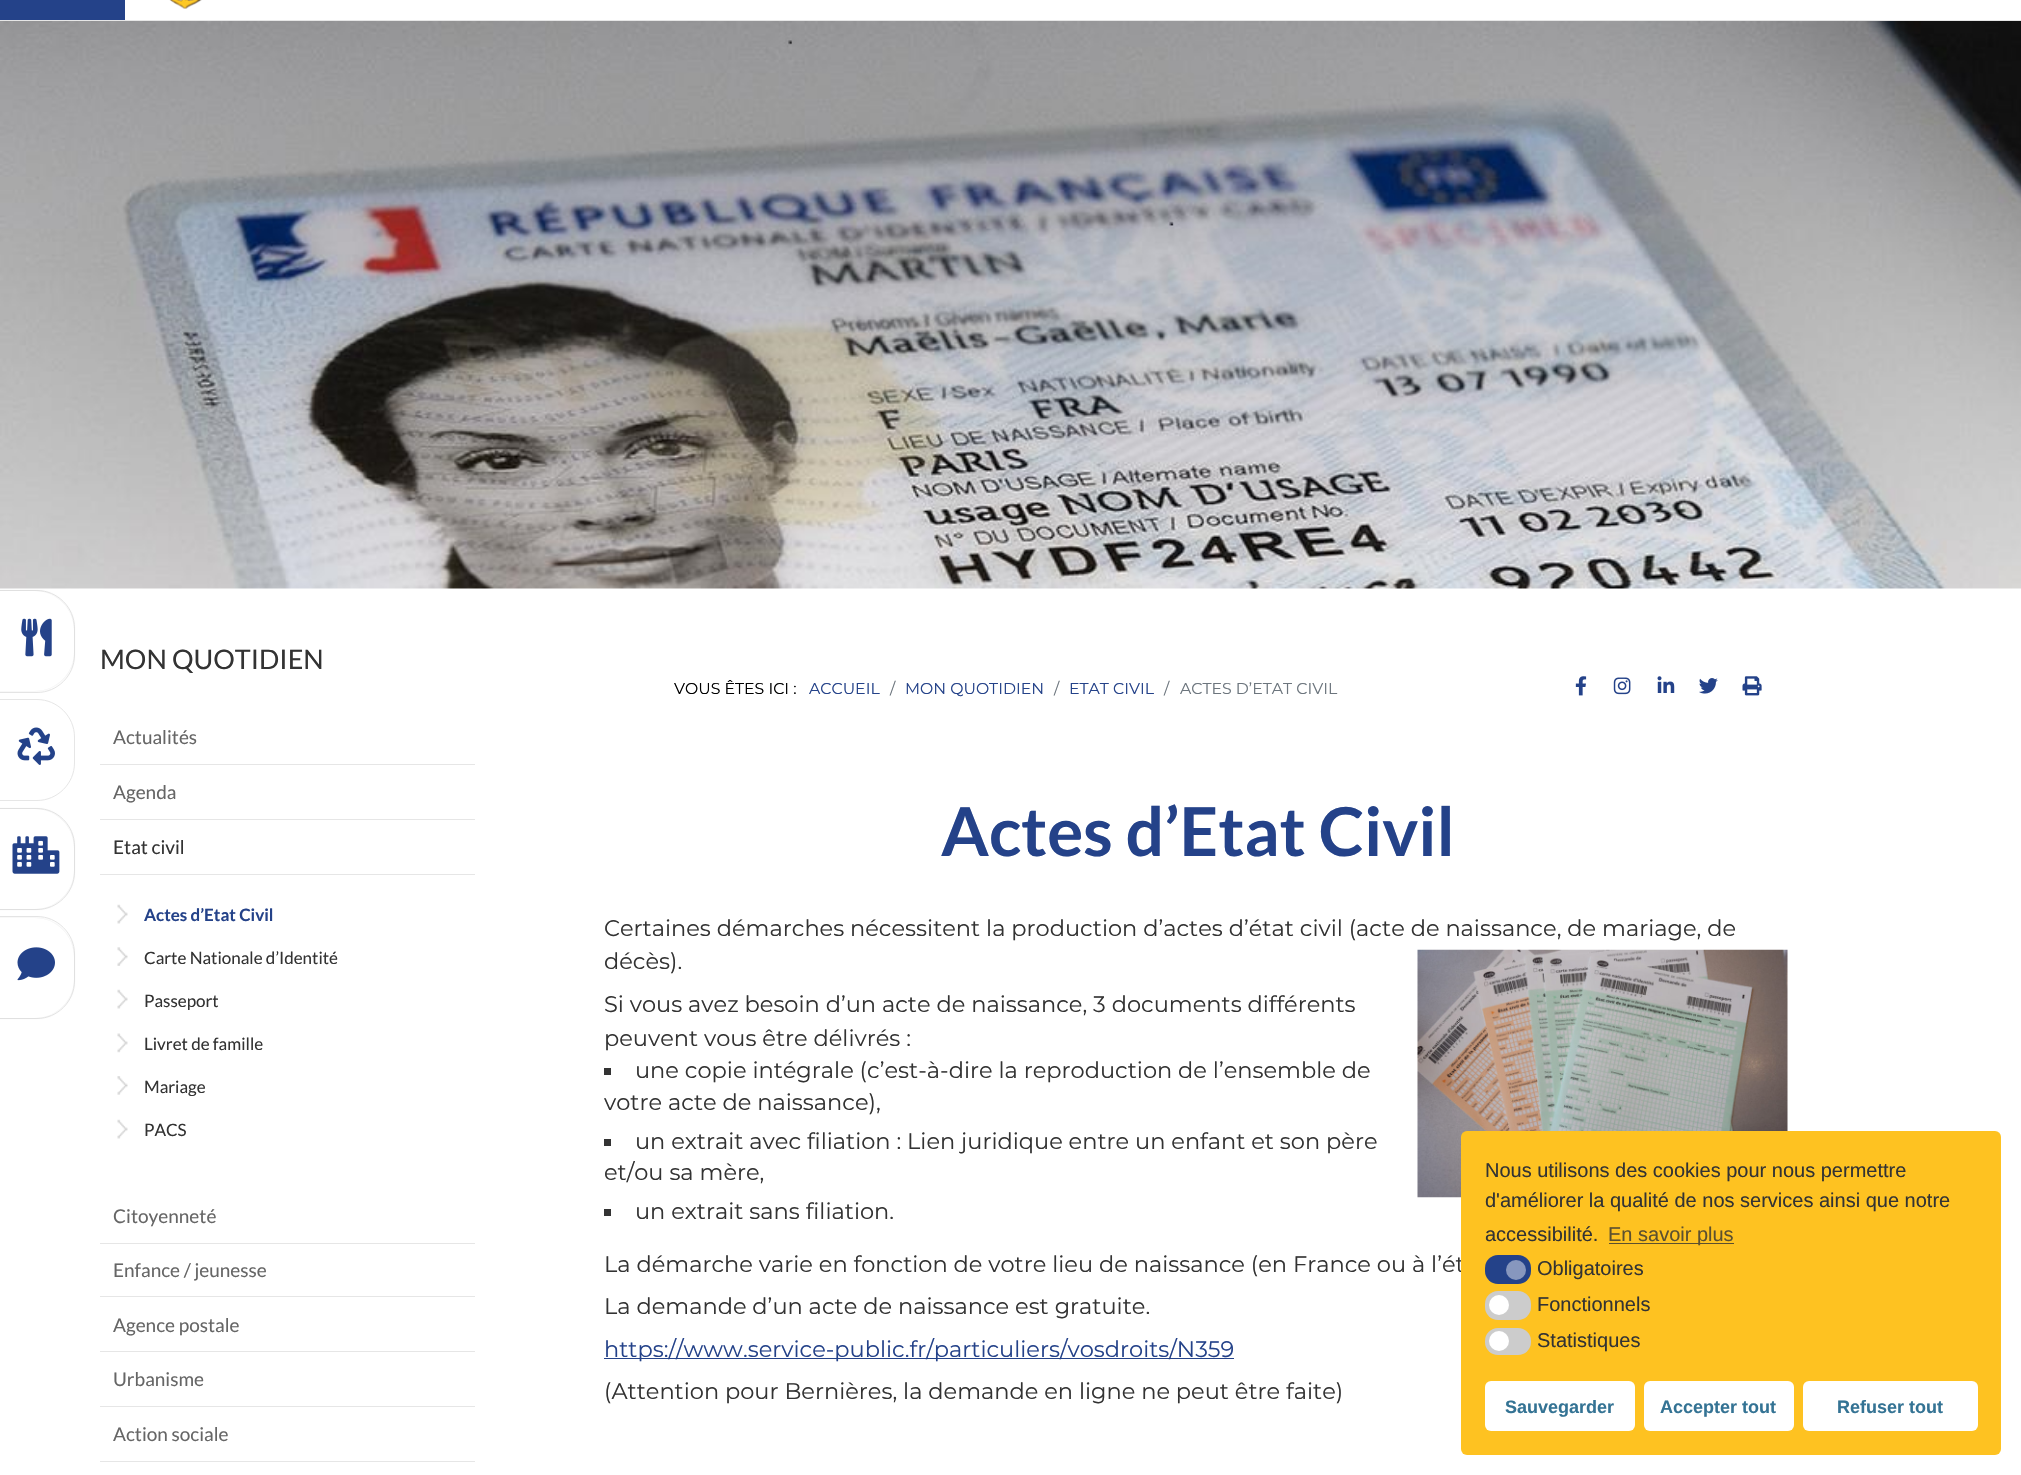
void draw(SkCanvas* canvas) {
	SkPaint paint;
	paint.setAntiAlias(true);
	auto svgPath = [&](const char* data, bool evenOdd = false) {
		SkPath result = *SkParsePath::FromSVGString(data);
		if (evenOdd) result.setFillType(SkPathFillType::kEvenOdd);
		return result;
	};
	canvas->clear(0xffffffff);
	paint.setColor(0xffe6e6e6);
	canvas->drawRect(SkRect::MakeXYWH(0, 20, 2021, 1), paint);
	paint.setColor(0xff244289);
	canvas->drawRect(SkRect::MakeXYWH(0, 0, 125, 20), paint);
	canvas->drawImageRect(SkImages::DeferredFromEncodedData(SkData::MakeFromFileName("img1.png")), SkRect::MakeXYWH(169, 0, 33, 9), SkSamplingOptions());
	canvas->drawImageRect(SkImages::DeferredFromEncodedData(SkData::MakeFromFileName("img2.png")), SkRect::MakeXYWH(0, 21, 2021, 568), SkSamplingOptions());
	paint.setStroke(true);
	paint.setStrokeWidth(1);
	paint.setColor(0xffe6e6e6);
	canvas->drawPath(svgPath("M-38.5 590.5H37C57.5 590.5 74.5 607.5 74.5 628V655C74.5 675.5 57.5 692.5 37 692.5H-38.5Z"), paint);
	canvas->save();
	canvas->clipPath(svgPath("M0 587H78V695H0ZM-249 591H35C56.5 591 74 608.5 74 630V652C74 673.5 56.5 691 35 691H-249Z", true), true);
	paint.setStroke(false);
	paint.setColor(0x1a000000);
	paint.setMaskFilter(SkMaskFilter::MakeBlur(kNormal_SkBlurStyle, 1));
	canvas->drawRoundRect(SkRect::MakeXYWH(-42, 591, 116, 100), 39, 39, paint);
	paint.setMaskFilter(nullptr);
	canvas->restore();
	canvas->drawImageRect(SkImages::DeferredFromEncodedData(SkData::MakeFromFileName("img3.png")), SkRect::MakeXYWH(21, 618, 31, 39), SkSamplingOptions());
	paint.setStroke(true);
	paint.setColor(0xffe6e6e6);
	canvas->drawPath(svgPath("M-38.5 699.5H37C57.5 699.5 74.5 716.5 74.5 737V763C74.5 783.5 57.5 800.5 37 800.5H-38.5Z"), paint);
	canvas->drawImageRect(SkImages::DeferredFromEncodedData(SkData::MakeFromFileName("img4.png")), SkRect::MakeXYWH(17, 727, 38, 38), SkSamplingOptions());
	canvas->drawPath(svgPath("M-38.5 808.5H37C57.5 808.5 74.5 825.5 74.5 846V872C74.5 892.5 57.5 909.5 37 909.5H-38.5Z"), paint);
	canvas->save();
	canvas->clipPath(svgPath("M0 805H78V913H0ZM-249 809H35C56.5 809 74 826.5 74 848V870C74 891.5 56.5 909 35 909H-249Z", true), true);
	paint.setStroke(false);
	paint.setColor(0x1a000000);
	paint.setMaskFilter(SkMaskFilter::MakeBlur(kNormal_SkBlurStyle, 1));
	canvas->drawRoundRect(SkRect::MakeXYWH(-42, 809, 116, 100), 39, 39, paint);
	paint.setMaskFilter(nullptr);
	canvas->restore();
	canvas->drawImageRect(SkImages::DeferredFromEncodedData(SkData::MakeFromFileName("img5.png")), SkRect::MakeXYWH(12, 836, 48, 38), SkSamplingOptions());
	paint.setStroke(true);
	paint.setColor(0xffe6e6e6);
	canvas->drawPath(svgPath("M-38.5 916.5H37C57.5 916.5 74.5 933.5 74.5 954V981C74.5 1001.5 57.5 1018.5 37 1018.5H-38.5Z"), paint);
	canvas->save();
	canvas->clipPath(svgPath("M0 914H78V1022H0ZM-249 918H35C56.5 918 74 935.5 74 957V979C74 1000.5 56.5 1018 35 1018H-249Z", true), true);
	paint.setStroke(false);
	paint.setColor(0x1a000000);
	paint.setMaskFilter(SkMaskFilter::MakeBlur(kNormal_SkBlurStyle, 1));
	canvas->drawRoundRect(SkRect::MakeXYWH(-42, 918, 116, 100), 39, 39, paint);
	paint.setMaskFilter(nullptr);
	canvas->restore();
	canvas->drawImageRect(SkImages::DeferredFromEncodedData(SkData::MakeFromFileName("img6.png")), SkRect::MakeXYWH(17, 947, 38, 34), SkSamplingOptions());
	SkFont f1(fontMgr->matchFamilyStyle("Lato", SkFontStyle::Normal()), 27);
	f1.setSubpixel(true);
	paint.setColor(0xff333333);
	canvas->drawString("MON QUOTIDIEN", 100, 669, f1, paint);
	paint.setColor(0xffe6e6e6);
	canvas->drawRect(SkRect::MakeXYWH(100, 764, 375, 1), paint);
	SkFont f2(fontMgr->matchFamilyStyle("Lato", SkFontStyle::Normal()), 19);
	f2.setSubpixel(true);
	paint.setColor(0xff666666);
	canvas->drawString("Actualités", 113, 744, f2, paint);
	paint.setColor(0xffe6e6e6);
	canvas->drawRect(SkRect::MakeXYWH(100, 819, 375, 1), paint);
	paint.setColor(0xff666666);
	canvas->drawString("Agenda", 113, 799, f2, paint);
	paint.setColor(0xffe6e6e6);
	canvas->drawRect(SkRect::MakeXYWH(100, 874, 375, 1), paint);
	paint.setColor(0xff333333);
	canvas->drawString("Etat civil", 113, 854, f2, paint);
	canvas->drawImageRect(SkImages::DeferredFromEncodedData(SkData::MakeFromFileName("img7.png")), SkRect::MakeXYWH(117, 904, 11, 20), SkSamplingOptions());
	SkFont f3(fontMgr->matchFamilyStyle("Lato", SkFontStyle::Bold()), 17);
	f3.setSubpixel(true);
	paint.setColor(0xff244289);
	canvas->drawString("Actes d’Etat Civil", 144, 921, f3, paint);
	canvas->drawImageRect(SkImages::DeferredFromEncodedData(SkData::MakeFromFileName("img8.png")), SkRect::MakeXYWH(117, 947, 11, 19), SkSamplingOptions());
	SkFont f4(fontMgr->matchFamilyStyle("Lato", SkFontStyle::Normal()), 17);
	f4.setSubpixel(true);
	paint.setColor(0xff333333);
	canvas->drawString("Carte Nationale d’Identité", 144, 964, f4, paint);
	canvas->drawImageRect(SkImages::DeferredFromEncodedData(SkData::MakeFromFileName("img7.png")), SkRect::MakeXYWH(117, 989, 11, 20), SkSamplingOptions());
	canvas->drawString("Passeport", 144, 1007, f4, paint);
	canvas->drawImageRect(SkImages::DeferredFromEncodedData(SkData::MakeFromFileName("img9.png")), SkRect::MakeXYWH(117, 1033, 11, 20), SkSamplingOptions());
	canvas->drawString("Livret de famille", 144, 1050, f4, paint);
	canvas->drawImageRect(SkImages::DeferredFromEncodedData(SkData::MakeFromFileName("img10.png")), SkRect::MakeXYWH(117, 1076, 11, 19), SkSamplingOptions());
	canvas->drawString("Mariage", 144, 1093, f4, paint);
	canvas->drawImageRect(SkImages::DeferredFromEncodedData(SkData::MakeFromFileName("img7.png")), SkRect::MakeXYWH(117, 1119, 11, 20), SkSamplingOptions());
	canvas->drawString("PACS", 144, 1136, f4, paint);
	paint.setColor(0xffe6e6e6);
	canvas->drawRect(SkRect::MakeXYWH(100, 1243, 375, 1), paint);
	paint.setColor(0xff666666);
	canvas->drawString("Citoyenneté", 113, 1223, f2, paint);
	paint.setColor(0xffe6e6e6);
	canvas->drawRect(SkRect::MakeXYWH(100, 1296, 375, 1), paint);
	paint.setColor(0xff666666);
	canvas->drawString("Enfance / jeunesse", 113, 1277, f2, paint);
	paint.setColor(0xffe6e6e6);
	canvas->drawRect(SkRect::MakeXYWH(100, 1351, 375, 1), paint);
	paint.setColor(0xff666666);
	canvas->drawString("Agence postale", 113, 1332, f2, paint);
	paint.setColor(0xffe6e6e6);
	canvas->drawRect(SkRect::MakeXYWH(100, 1406, 375, 1), paint);
	paint.setColor(0xff666666);
	canvas->drawString("Urbanisme", 113, 1386, f2, paint);
	paint.setColor(0xffe6e6e6);
	canvas->drawRect(SkRect::MakeXYWH(100, 1461, 375, 1), paint);
	paint.setColor(0xff666666);
	canvas->drawString("Action sociale", 113, 1441, f2, paint);
	SkFont f5(fontMgr->matchFamilyStyle("Montserrat", SkFontStyle::Normal()), 15.75);
	f5.setSubpixel(true);
	paint.setColor(0xff000000);
	canvas->drawString("VOUS ÊTES ICI :", 674, 694, f5, paint);
	paint.setColor(0xff244289);
	canvas->drawString("ACCUEIL", 809, 694, f5, paint);
	paint.setColor(0xff6c757d);
	canvas->drawString("/", 890, 694, f5, paint);
	paint.setColor(0xff244289);
	canvas->drawString("MON QUOTIDIEN", 905, 694, f5, paint);
	paint.setColor(0xff6c757d);
	canvas->drawString("/", 1054, 694, f5, paint);
	paint.setColor(0xff244289);
	canvas->drawString("ETAT CIVIL", 1069, 694, f5, paint);
	paint.setColor(0xff6c757d);
	canvas->drawString("/", 1164, 694, f5, paint);
	canvas->drawString("ACTES D’ETAT CIVIL", 1180, 694, f5, paint);
	canvas->drawImageRect(SkImages::DeferredFromEncodedData(SkData::MakeFromFileName("img11.png")), SkRect::MakeXYWH(1575, 676, 12, 20), SkSamplingOptions());
	canvas->drawImageRect(SkImages::DeferredFromEncodedData(SkData::MakeFromFileName("img12.png")), SkRect::MakeXYWH(1613, 677, 18, 18), SkSamplingOptions());
	canvas->drawImageRect(SkImages::DeferredFromEncodedData(SkData::MakeFromFileName("img13.png")), SkRect::MakeXYWH(1657, 676, 18, 17), SkSamplingOptions());
	canvas->drawImageRect(SkImages::DeferredFromEncodedData(SkData::MakeFromFileName("img14.png")), SkRect::MakeXYWH(1699, 678, 19, 16), SkSamplingOptions());
	canvas->drawImageRect(SkImages::DeferredFromEncodedData(SkData::MakeFromFileName("img15.png")), SkRect::MakeXYWH(1742, 676, 20, 20), SkSamplingOptions());
	SkFont f6(fontMgr->matchFamilyStyle("Lato", SkFontStyle::Bold()), 67.5);
	f6.setSubpixel(true);
	paint.setColor(0xff244289);
	canvas->drawString("Actes d’Etat Civil", 941, 856, f6, paint);
	SkFont f7(fontMgr->matchFamilyStyle("Montserrat", SkFontStyle::Normal()), 22.5);
	f7.setSubpixel(true);
	paint.setColor(0xff333333);
	canvas->drawString("Certaines démarches nécessitent la production d’actes d’état civil (acte de naissance, de mariage, de", 604, 936, f7, paint);
	canvas->drawString("décès).", 604, 969, f7, paint);
	canvas->drawImageRect(SkImages::DeferredFromEncodedData(SkData::MakeFromFileName("img16.png")), SkRect::MakeXYWH(1417, 949, 371, 249), SkSamplingOptions());
	canvas->drawString("Si vous avez besoin d’un acte de naissance, 3 documents différents", 604, 1012, f7, paint);
	canvas->drawString("peuvent vous être délivrés :", 604, 1046, f7, paint);
	canvas->drawRect(SkRect::MakeXYWH(604, 1068, 7, 7), paint);
	canvas->drawString("une copie intégrale (c’est-à-dire la reproduction de l’ensemble de", 635, 1078, f7, paint);
	canvas->drawString("votre acte de naissance),", 604, 1110, f7, paint);
	canvas->drawRect(SkRect::MakeXYWH(604, 1139, 7, 7), paint);
	canvas->drawString("un extrait avec filiation : Lien juridique entre un enfant et son père", 635, 1149, f7, paint);
	canvas->drawString("et/ou sa mère,", 604, 1180, f7, paint);
	canvas->drawRect(SkRect::MakeXYWH(604, 1209, 7, 7), paint);
	canvas->drawString("un extrait sans filiation.", 635, 1219, f7, paint);
	canvas->drawString("La démarche varie en fonction de votre lieu de naissance (en France ou à l’ét", 604, 1272, f7, paint);
	canvas->drawString("La demande d’un acte de naissance est gratuite.", 604, 1314, f7, paint);
	paint.setColor(0xff244289);
	canvas->drawRect(SkRect::MakeXYWH(604, 1358, 630, 1), paint);
	canvas->drawString("https://www.service-public.fr/particuliers/vosdroits/N359", 604, 1357, f7, paint);
	paint.setColor(0xff333333);
	canvas->drawString("(Attention pour Bernières, la demande en ligne ne peut être faite)", 604, 1399, f7, paint);
	paint.setColor(0xfffec221);
	canvas->drawRoundRect(SkRect::MakeXYWH(1461, 1131, 540, 324), 6, 6, paint);
	SkFont f8(fontMgr->matchFamilyStyle("Liberation Sans", SkFontStyle::Normal()), 20);
	f8.setSubpixel(true);
	paint.setColor(0xff333333);
	canvas->drawString("Nous utilisons des cookies pour nous permettre", 1485, 1177, f8, paint);
	canvas->drawString("d'améliorer la qualité de nos services ainsi que notre", 1485, 1207, f8, paint);
	canvas->drawString("accessibilité.", 1485, 1241, f8, paint);
	paint.setColor(0xff5c502f);
	canvas->drawRect(SkRect::MakeXYWH(1609, 1243, 125, 1), paint);
	canvas->drawString("En savoir plus", 1608, 1241, f8, paint);
	paint.setColor(0xff244289);
	canvas->drawRoundRect(SkRect::MakeXYWH(1485, 1255, 46, 29), 13, 13, paint);
	paint.setColor(0xff8797be);
	canvas->drawCircle(1516, 1270, 10, paint);
	paint.setColor(0xff333333);
	canvas->drawString("Obligatoires", 1537, 1275, f8, paint);
	paint.setColor(0xffcccccc);
	canvas->drawRoundRect(SkRect::MakeXYWH(1485, 1291, 46, 29), 13, 13, paint);
	paint.setColor(0xffffffff);
	canvas->drawCircle(1499, 1305, 10, paint);
	paint.setColor(0xff333333);
	canvas->drawString("Fonctionnels", 1537, 1311, f8, paint);
	paint.setColor(0xffcccccc);
	canvas->drawRoundRect(SkRect::MakeXYWH(1485, 1328, 46, 27), 13, 13, paint);
	paint.setColor(0xffffffff);
	canvas->drawCircle(1499, 1341, 10, paint);
	paint.setColor(0xff333333);
	canvas->drawString("Statistiques", 1537, 1347, f8, paint);
	paint.setColor(0xffffffff);
	canvas->drawRoundRect(SkRect::MakeXYWH(1485, 1381, 150, 50), 6, 6, paint);
	SkFont f9(fontMgr->matchFamilyStyle("Liberation Sans", SkFontStyle::Bold()), 18);
	f9.setSubpixel(true);
	paint.setColor(0xff347394);
	canvas->drawString("Sauvegarder", 1505, 1413, f9, paint);
	paint.setColor(0xffffffff);
	canvas->drawRoundRect(SkRect::MakeXYWH(1644, 1381, 150, 50), 6, 6, paint);
	paint.setColor(0xff347394);
	canvas->drawString("Accepter tout", 1660, 1413, f9, paint);
	paint.setColor(0xffffffff);
	canvas->drawRoundRect(SkRect::MakeXYWH(1803, 1381, 175, 50), 6, 6, paint);
	paint.setColor(0xff347394);
	canvas->drawString("Refuser tout", 1837, 1413, f9, paint);
}
